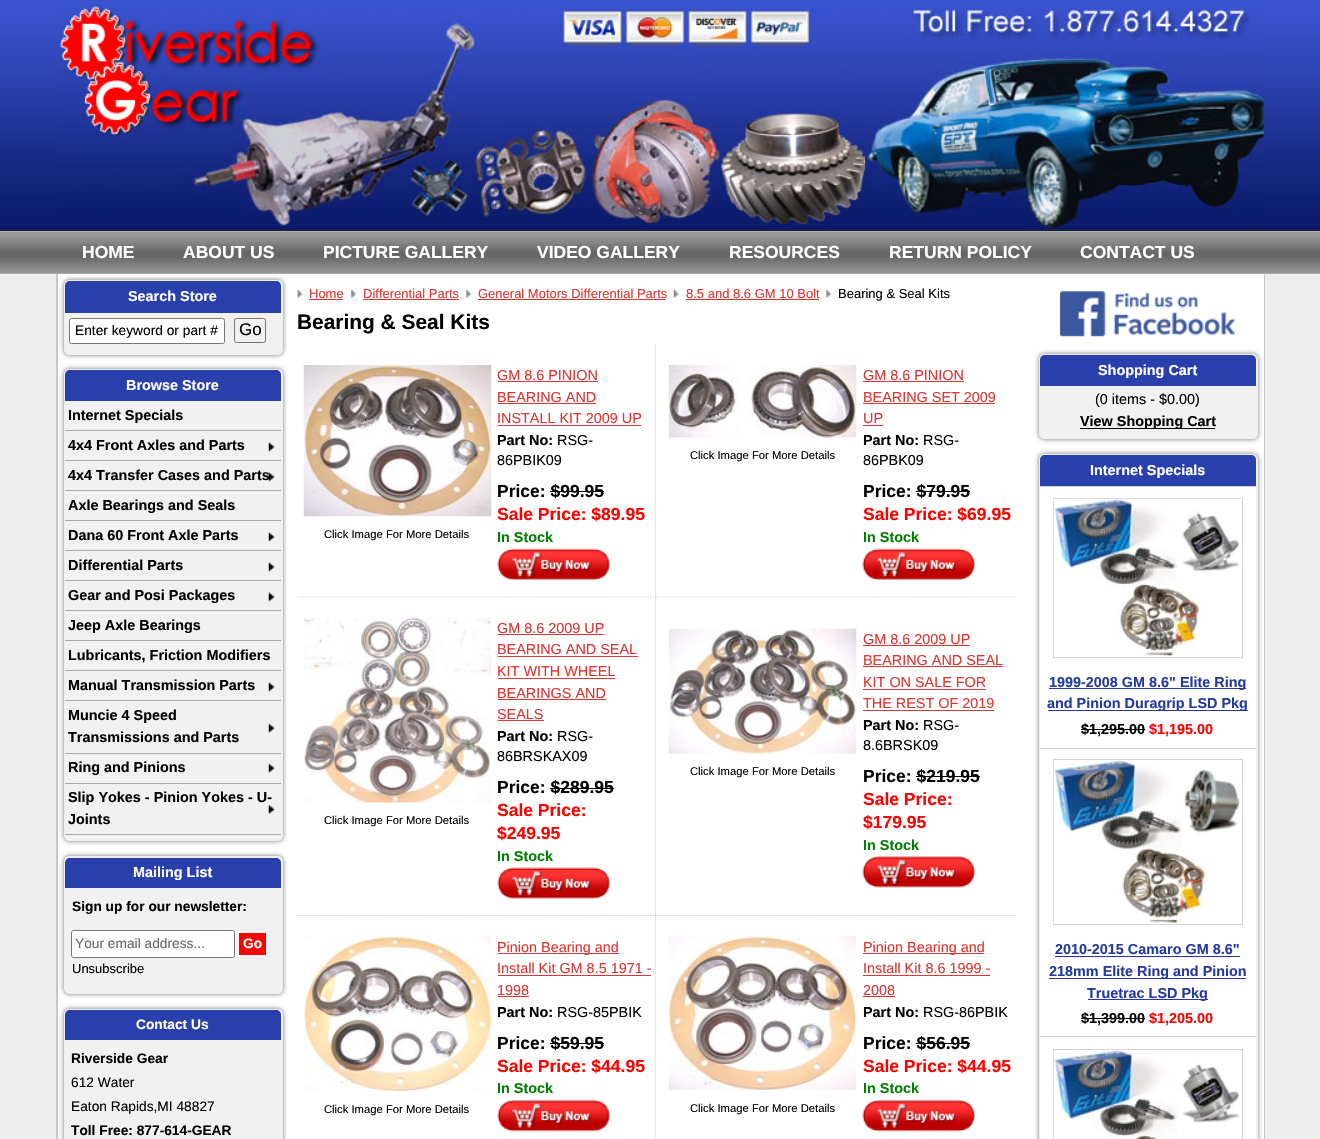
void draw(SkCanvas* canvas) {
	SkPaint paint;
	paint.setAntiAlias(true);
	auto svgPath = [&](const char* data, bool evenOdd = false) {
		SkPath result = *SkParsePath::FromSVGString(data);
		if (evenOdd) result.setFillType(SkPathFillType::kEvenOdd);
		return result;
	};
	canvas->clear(0xffeeeeee);
	canvas->drawImageRect(SkImages::DeferredFromEncodedData(SkData::MakeFromFileName("img1.png")), SkRect::MakeXYWH(0, 0, 1320, 230), SkSamplingOptions());
	canvas->drawImageRect(SkImages::DeferredFromEncodedData(SkData::MakeFromFileName("img2.png")), SkRect::MakeXYWH(58, 0, 1206, 230), SkSamplingOptions());
	canvas->drawImageRect(SkImages::DeferredFromEncodedData(SkData::MakeFromFileName("img3.png")), SkRect::MakeXYWH(60, 8, 258, 129), SkSamplingOptions());
	canvas->drawImageRect(SkImages::DeferredFromEncodedData(SkData::MakeFromFileName("img4.png")), SkRect::MakeXYWH(0, 231, 1320, 43), SkSamplingOptions());
	paint.setColor(0xff232323);
	canvas->drawRect(SkRect::MakeXYWH(0, 230, 1320, 1), paint);
	SkFont f1(fontMgr->matchFamilyStyle("Liberation Sans", SkFontStyle::Bold()), 17.5);
	f1.setSubpixel(true);
	paint.setColor(0xffffffff);
	canvas->drawString("HOME", 82, 258, f1, paint);
	canvas->drawString("ABOUT US", 183, 258, f1, paint);
	canvas->drawString("PICTURE GALLERY", 323, 258, f1, paint);
	canvas->drawString("VIDEO GALLERY", 537, 258, f1, paint);
	canvas->drawString("RESOURCES", 729, 258, f1, paint);
	canvas->drawString("RETURN POLICY", 889, 258, f1, paint);
	canvas->drawString("CONTACT US", 1080, 258, f1, paint);
	canvas->drawRect(SkRect::MakeXYWH(58, 274, 1206, 865), paint);
	paint.setColor(0xffc8c8c8);
	canvas->drawPath(svgPath("M56 274H1265V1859C1265 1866 1259 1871 1252 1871H69C62 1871 56 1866 56 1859ZM58 274H1264V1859C1264 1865 1259 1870 1252 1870H69C63 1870 58 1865 58 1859Z", true), paint);
	paint.setColor(0xff777777);
	paint.setMaskFilter(SkMaskFilter::MakeBlur(kNormal_SkBlurStyle, 2.5));
	canvas->drawRoundRect(SkRect::MakeXYWH(64, 280, 219, 75), 5, 5, paint);
	paint.setMaskFilter(nullptr);
	paint.setColor(0xfff1f1f1);
	canvas->drawRoundRect(SkRect::MakeXYWH(64.5, 280.5, 218, 74), 4.5, 4.5, paint);
	paint.setStroke(true);
	paint.setStrokeWidth(1);
	paint.setColor(0xffeeeeee);
	canvas->drawRoundRect(SkRect::MakeXYWH(64.5, 280.5, 218, 74), 4.5, 4.5, paint);
	paint.setStroke(false);
	paint.setColor(0xff293fac);
	canvas->drawPath(svgPath("M70 281H276C279 281 281 283 281 286V313H65V286C65 283 67 281 70 281Z"), paint);
	SkFont f2(fontMgr->matchFamilyStyle("Liberation Sans", SkFontStyle::Bold()), 14.4);
	f2.setSubpixel(true);
	paint.setColor(0xffffffff);
	canvas->drawString("Search Store", 128, 301, f2, paint);
	canvas->drawRoundRect(SkRect::MakeXYWH(69.5, 318.5, 155, 25), 2, 2, paint);
	paint.setStroke(true);
	paint.setColor(0xff767676);
	canvas->drawRoundRect(SkRect::MakeXYWH(69.5, 318.5, 155, 25), 2, 2, paint);
	SkFont f3(fontMgr->matchFamilyStyle("Liberation Sans", SkFontStyle::Normal()), 13.75);
	f3.setSubpixel(true);
	paint.setStroke(false);
	paint.setColor(0xff000000);
	canvas->drawString("Enter keyword or part #", 75, 335, f3, paint);
	paint.setStroke(true);
	paint.setColor(0xff767676);
	canvas->drawRoundRect(SkRect::MakeXYWH(234.5, 318.5, 31, 24), 2, 2, paint);
	SkFont f4(fontMgr->matchFamilyStyle("Liberation Sans", SkFontStyle::Normal()), 17);
	f4.setSubpixel(true);
	paint.setStroke(false);
	paint.setColor(0xff000000);
	canvas->drawString("Go", 239, 335, f4, paint);
	paint.setColor(0xff777777);
	paint.setMaskFilter(SkMaskFilter::MakeBlur(kNormal_SkBlurStyle, 2.5));
	canvas->drawRoundRect(SkRect::MakeXYWH(64, 369, 219, 472), 5, 5, paint);
	paint.setMaskFilter(nullptr);
	paint.setColor(0xfff1f1f1);
	canvas->drawRoundRect(SkRect::MakeXYWH(64.5, 369.5, 218, 471), 4.5, 4.5, paint);
	paint.setStroke(true);
	paint.setColor(0xffeeeeee);
	canvas->drawRoundRect(SkRect::MakeXYWH(64.5, 369.5, 218, 471), 4.5, 4.5, paint);
	paint.setStroke(false);
	paint.setColor(0xff293fac);
	canvas->drawPath(svgPath("M70 370H276C279 370 281 372 281 375V401H65V375C65 372 67 370 70 370Z"), paint);
	paint.setColor(0xffffffff);
	canvas->drawString("Browse Store", 126, 390, f2, paint);
	paint.setColor(0xffaaaaaa);
	canvas->drawRect(SkRect::MakeXYWH(65, 430, 216, 1), paint);
	paint.setColor(0xff000000);
	canvas->drawString("Internet Specials", 68, 420, f2, paint);
	canvas->drawImageRect(SkImages::DeferredFromEncodedData(SkData::MakeFromFileName("img5.png")), SkRect::MakeXYWH(268, 442, 7, 10), SkSamplingOptions());
	paint.setColor(0xffaaaaaa);
	canvas->drawRect(SkRect::MakeXYWH(65, 460, 216, 1), paint);
	paint.setColor(0xff000000);
	canvas->drawString("4x4 Front Axles and Parts", 68, 450, f2, paint);
	canvas->drawImageRect(SkImages::DeferredFromEncodedData(SkData::MakeFromFileName("img5.png")), SkRect::MakeXYWH(268, 472, 7, 10), SkSamplingOptions());
	paint.setColor(0xffaaaaaa);
	canvas->drawRect(SkRect::MakeXYWH(65, 490, 216, 1), paint);
	paint.setColor(0xff000000);
	canvas->drawString("4x4 Transfer Cases and Parts", 68, 480, f2, paint);
	paint.setColor(0xffaaaaaa);
	canvas->drawRect(SkRect::MakeXYWH(65, 520, 216, 1), paint);
	paint.setColor(0xff000000);
	canvas->drawString("Axle Bearings and Seals", 68, 510, f2, paint);
	canvas->drawImageRect(SkImages::DeferredFromEncodedData(SkData::MakeFromFileName("img5.png")), SkRect::MakeXYWH(268, 532, 7, 10), SkSamplingOptions());
	paint.setColor(0xffaaaaaa);
	canvas->drawRect(SkRect::MakeXYWH(65, 550, 216, 1), paint);
	paint.setColor(0xff000000);
	canvas->drawString("Dana 60 Front Axle Parts", 68, 540, f2, paint);
	canvas->drawImageRect(SkImages::DeferredFromEncodedData(SkData::MakeFromFileName("img5.png")), SkRect::MakeXYWH(268, 562, 7, 10), SkSamplingOptions());
	paint.setColor(0xffaaaaaa);
	canvas->drawRect(SkRect::MakeXYWH(65, 580, 216, 1), paint);
	paint.setColor(0xff000000);
	canvas->drawString("Differential Parts", 68, 570, f2, paint);
	canvas->drawImageRect(SkImages::DeferredFromEncodedData(SkData::MakeFromFileName("img5.png")), SkRect::MakeXYWH(268, 592, 7, 10), SkSamplingOptions());
	paint.setColor(0xffaaaaaa);
	canvas->drawRect(SkRect::MakeXYWH(65, 610, 216, 1), paint);
	paint.setColor(0xff000000);
	canvas->drawString("Gear and Posi Packages", 68, 600, f2, paint);
	paint.setColor(0xffaaaaaa);
	canvas->drawRect(SkRect::MakeXYWH(65, 640, 216, 1), paint);
	paint.setColor(0xff000000);
	canvas->drawString("Jeep Axle Bearings", 68, 630, f2, paint);
	paint.setColor(0xffaaaaaa);
	canvas->drawRect(SkRect::MakeXYWH(65, 670, 216, 1), paint);
	paint.setColor(0xff000000);
	canvas->drawString("Lubricants, Friction Modifiers", 68, 660, f2, paint);
	canvas->drawImageRect(SkImages::DeferredFromEncodedData(SkData::MakeFromFileName("img5.png")), SkRect::MakeXYWH(268, 682, 7, 10), SkSamplingOptions());
	paint.setColor(0xffaaaaaa);
	canvas->drawRect(SkRect::MakeXYWH(65, 700, 216, 1), paint);
	paint.setColor(0xff000000);
	canvas->drawString("Manual Transmission Parts", 68, 690, f2, paint);
	canvas->drawImageRect(SkImages::DeferredFromEncodedData(SkData::MakeFromFileName("img6.png")), SkRect::MakeXYWH(268, 723, 7, 10), SkSamplingOptions());
	paint.setColor(0xffaaaaaa);
	canvas->drawRect(SkRect::MakeXYWH(65, 753, 216, 1), paint);
	paint.setColor(0xff000000);
	canvas->drawString("Muncie 4 Speed", 68, 720, f2, paint);
	canvas->drawString("Transmissions and Parts", 68, 742, f2, paint);
	canvas->drawImageRect(SkImages::DeferredFromEncodedData(SkData::MakeFromFileName("img6.png")), SkRect::MakeXYWH(268, 763, 7, 10), SkSamplingOptions());
	paint.setColor(0xffaaaaaa);
	canvas->drawRect(SkRect::MakeXYWH(65, 783, 216, 1), paint);
	paint.setColor(0xff000000);
	canvas->drawString("Ring and Pinions", 68, 772, f2, paint);
	canvas->drawImageRect(SkImages::DeferredFromEncodedData(SkData::MakeFromFileName("img7.png")), SkRect::MakeXYWH(268, 805, 8, 9), SkSamplingOptions());
	paint.setColor(0xffaaaaaa);
	canvas->drawRect(SkRect::MakeXYWH(65, 834, 216, 1), paint);
	paint.setColor(0xff000000);
	canvas->drawString("Slip Yokes - Pinion Yokes - U-", 68, 802, f2, paint);
	canvas->drawString("Joints", 68, 824, f2, paint);
	paint.setColor(0xff777777);
	paint.setMaskFilter(SkMaskFilter::MakeBlur(kNormal_SkBlurStyle, 2.5));
	canvas->drawRoundRect(SkRect::MakeXYWH(64, 856, 219, 138), 5, 5, paint);
	paint.setMaskFilter(nullptr);
	paint.setColor(0xfff1f1f1);
	canvas->drawRoundRect(SkRect::MakeXYWH(64.5, 856.5, 218, 137), 4.5, 4.5, paint);
	paint.setStroke(true);
	paint.setColor(0xffeeeeee);
	canvas->drawRoundRect(SkRect::MakeXYWH(64.5, 856.5, 218, 137), 4.5, 4.5, paint);
	paint.setStroke(false);
	paint.setColor(0xff293fac);
	canvas->drawPath(svgPath("M70 858H276C279 858 281 860 281 863V888H65V863C65 860 67 858 70 858Z"), paint);
	paint.setColor(0xffffffff);
	canvas->drawString("Mailing List", 133, 877, f2, paint);
	SkFont f5(fontMgr->matchFamilyStyle("Liberation Sans", SkFontStyle::Bold()), 13.75);
	f5.setSubpixel(true);
	paint.setColor(0xff000000);
	canvas->drawString("Sign up for our newsletter:", 72, 911, f5, paint);
	paint.setColor(0xffffffff);
	canvas->drawRoundRect(SkRect::MakeXYWH(71.5, 930.5, 163, 27), 2, 2, paint);
	paint.setStroke(true);
	paint.setColor(0xff767676);
	canvas->drawRoundRect(SkRect::MakeXYWH(71.5, 930.5, 163, 27), 2, 2, paint);
	paint.setStroke(false);
	paint.setColor(0xff666666);
	canvas->drawString("Your email address...", 75, 948, f3, paint);
	paint.setColor(0xffff0000);
	canvas->drawRect(SkRect::MakeXYWH(239, 933, 27, 22), paint);
	paint.setColor(0xffffffff);
	canvas->drawString("Go", 243, 948, f5, paint);
	SkFont f6(fontMgr->matchFamilyStyle("Liberation Sans", SkFontStyle::Normal()), 13);
	f6.setSubpixel(true);
	paint.setColor(0xff000000);
	canvas->drawString("Unsubscribe", 72, 973, f6, paint);
	paint.setColor(0xff777777);
	paint.setMaskFilter(SkMaskFilter::MakeBlur(kNormal_SkBlurStyle, 2.5));
	canvas->drawRoundRect(SkRect::MakeXYWH(64, 1009, 219, 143), 5, 5, paint);
	paint.setMaskFilter(nullptr);
	paint.setColor(0xfff1f1f1);
	canvas->drawRoundRect(SkRect::MakeXYWH(64.5, 1009.5, 218, 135), 4.5, 4.5, paint);
	paint.setStroke(true);
	paint.setColor(0xffeeeeee);
	canvas->drawRoundRect(SkRect::MakeXYWH(64.5, 1009.5, 218, 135), 4.5, 4.5, paint);
	paint.setStroke(false);
	paint.setColor(0xff293fac);
	canvas->drawPath(svgPath("M70 1010H276C279 1010 281 1012 281 1015V1040H65V1015C65 1012 67 1010 70 1010Z"), paint);
	paint.setColor(0xffffffff);
	canvas->drawString("Contact Us", 136, 1029, f5, paint);
	paint.setColor(0xff000000);
	canvas->drawString("Riverside Gear", 71, 1063, f5, paint);
	canvas->drawString("612 Water", 71, 1087, f3, paint);
	canvas->drawString("Eaton Rapids,MI 48827", 71, 1111, f3, paint);
	canvas->drawString("Toll Free: 877-614-GEAR", 71, 1135, f5, paint);
	canvas->drawImageRect(SkImages::DeferredFromEncodedData(SkData::MakeFromFileName("img8.png")), SkRect::MakeXYWH(297, 290, 6, 8), SkSamplingOptions());
	paint.setColor(0xffdb3632);
	canvas->drawString("Home", 309, 298, f6, paint);
	canvas->drawRect(SkRect::MakeXYWH(309, 299, 34, 1), paint);
	canvas->drawImageRect(SkImages::DeferredFromEncodedData(SkData::MakeFromFileName("img9.png")), SkRect::MakeXYWH(351, 290, 6, 8), SkSamplingOptions());
	canvas->drawString("Differential Parts", 363, 298, f6, paint);
	canvas->drawRect(SkRect::MakeXYWH(363, 299, 96, 1), paint);
	canvas->drawImageRect(SkImages::DeferredFromEncodedData(SkData::MakeFromFileName("img9.png")), SkRect::MakeXYWH(466, 290, 6, 8), SkSamplingOptions());
	canvas->drawString("General Motors Differential Parts", 478, 298, f6, paint);
	canvas->drawRect(SkRect::MakeXYWH(478, 299, 188, 1), paint);
	canvas->drawImageRect(SkImages::DeferredFromEncodedData(SkData::MakeFromFileName("img10.png")), SkRect::MakeXYWH(673, 290, 6, 8), SkSamplingOptions());
	canvas->drawString("8.5 and 8.6 GM 10 Bolt", 686, 298, f6, paint);
	canvas->drawRect(SkRect::MakeXYWH(686, 299, 133, 1), paint);
	canvas->drawImageRect(SkImages::DeferredFromEncodedData(SkData::MakeFromFileName("img9.png")), SkRect::MakeXYWH(826, 290, 6, 8), SkSamplingOptions());
	paint.setColor(0xff000000);
	canvas->drawString("Bearing & Seal Kits", 838, 298, f6, paint);
	SkFont f7(fontMgr->matchFamilyStyle("Liberation Sans", SkFontStyle::Bold()), 20.9);
	f7.setSubpixel(true);
	canvas->drawString("Bearing & Seal Kits", 297, 329, f7, paint);
	paint.setStroke(true);
	paint.setStrokeWidth(1.2);
	paint.setColor(0xffcccccc);
	paint.setPathEffect(SkDashPathEffect::Make({{1.25f, 1.25f}}, 0));
	canvas->drawPath(svgPath("M655.5 345V597.5"), paint);
	paint.setPathEffect(nullptr);
	paint.setPathEffect(SkDashPathEffect::Make({{1.25f, 1.25f}}, 0));
	canvas->drawPath(svgPath("M297.5 597H656"), paint);
	paint.setPathEffect(nullptr);
	canvas->drawImageRect(SkImages::DeferredFromEncodedData(SkData::MakeFromFileName("img11.png")), SkRect::MakeXYWH(303, 365, 189, 152), SkSamplingOptions());
	SkFont f8(fontMgr->matchFamilyStyle("Liberation Sans", SkFontStyle::Normal()), 11.25);
	f8.setSubpixel(true);
	paint.setStroke(false);
	paint.setColor(0xff000000);
	canvas->drawString("Click Image For More Details", 324, 538, f8, paint);
	SkFont f9(fontMgr->matchFamilyStyle("Liberation Sans", SkFontStyle::Normal()), 14.4);
	f9.setSubpixel(true);
	paint.setColor(0xffdb3632);
	canvas->drawString("GM 8.6 PINION", 497, 380, f9, paint);
	canvas->drawRect(SkRect::MakeXYWH(498, 381, 100, 1), paint);
	canvas->drawString("BEARING AND", 497, 402, f9, paint);
	canvas->drawRect(SkRect::MakeXYWH(498, 403, 98, 1), paint);
	canvas->drawString("INSTALL KIT 2009 UP", 497, 423, f9, paint);
	canvas->drawRect(SkRect::MakeXYWH(498, 425, 143, 1), paint);
	paint.setColor(0xff000000);
	canvas->drawString("Part No:", 497, 445, f2, paint);
	canvas->drawString("RSG-", 557, 445, f9, paint);
	canvas->drawString("86PBIK09", 497, 465, f9, paint);
	canvas->drawString("Price: $99.95", 497, 497, f1, paint);
	canvas->drawRect(SkRect::MakeXYWH(550, 491, 54, 1), paint);
	paint.setColor(0xffff0000);
	canvas->drawString("Sale Price: $89.95", 497, 520, f1, paint);
	paint.setColor(0xff008000);
	canvas->drawString("In Stock", 497, 542, f2, paint);
	canvas->drawImageRect(SkImages::DeferredFromEncodedData(SkData::MakeFromFileName("img12.png")), SkRect::MakeXYWH(497, 548, 113, 32), SkSamplingOptions());
	paint.setStroke(true);
	paint.setColor(0xffcccccc);
	paint.setPathEffect(SkDashPathEffect::Make({{1.25f, 1.25f}}, 0));
	canvas->drawPath(svgPath("M656 597H1016"), paint);
	paint.setPathEffect(nullptr);
	canvas->drawImageRect(SkImages::DeferredFromEncodedData(SkData::MakeFromFileName("img13.png")), SkRect::MakeXYWH(668, 365, 189, 73), SkSamplingOptions());
	paint.setStroke(false);
	paint.setColor(0xff000000);
	canvas->drawString("Click Image For More Details", 690, 459, f8, paint);
	paint.setColor(0xffdb3632);
	canvas->drawString("GM 8.6 PINION", 863, 380, f9, paint);
	canvas->drawRect(SkRect::MakeXYWH(863, 381, 101, 1), paint);
	canvas->drawString("BEARING SET 2009", 863, 402, f9, paint);
	canvas->drawRect(SkRect::MakeXYWH(863, 403, 132, 1), paint);
	canvas->drawString("UP", 863, 423, f9, paint);
	canvas->drawRect(SkRect::MakeXYWH(863, 425, 20, 1), paint);
	paint.setColor(0xff000000);
	canvas->drawString("Part No:", 863, 445, f2, paint);
	canvas->drawString("RSG-", 923, 445, f9, paint);
	canvas->drawString("86PBK09", 863, 465, f9, paint);
	canvas->drawString("Price: $79.95", 863, 497, f1, paint);
	canvas->drawRect(SkRect::MakeXYWH(916, 491, 54, 1), paint);
	paint.setColor(0xffff0000);
	canvas->drawString("Sale Price: $69.95", 863, 520, f1, paint);
	paint.setColor(0xff008000);
	canvas->drawString("In Stock", 863, 542, f2, paint);
	canvas->drawImageRect(SkImages::DeferredFromEncodedData(SkData::MakeFromFileName("img12.png")), SkRect::MakeXYWH(862, 548, 113, 32), SkSamplingOptions());
	paint.setStroke(true);
	paint.setColor(0xffcccccc);
	paint.setPathEffect(SkDashPathEffect::Make({{1.25f, 1.25f}}, 0));
	canvas->drawPath(svgPath("M655.5 597.5V916"), paint);
	paint.setPathEffect(nullptr);
	paint.setPathEffect(SkDashPathEffect::Make({{1.25f, 1.25f}}, 0));
	canvas->drawPath(svgPath("M297.5 915.5H656"), paint);
	paint.setPathEffect(nullptr);
	canvas->drawImageRect(SkImages::DeferredFromEncodedData(SkData::MakeFromFileName("img14.png")), SkRect::MakeXYWH(303, 617, 189, 186), SkSamplingOptions());
	paint.setStroke(false);
	paint.setColor(0xff000000);
	canvas->drawString("Click Image For More Details", 324, 824, f8, paint);
	paint.setColor(0xffdb3632);
	canvas->drawString("GM 8.6 2009 UP", 497, 633, f9, paint);
	canvas->drawRect(SkRect::MakeXYWH(498, 634, 106, 1), paint);
	canvas->drawString("BEARING AND SEAL", 497, 654, f9, paint);
	canvas->drawRect(SkRect::MakeXYWH(498, 656, 140, 1), paint);
	canvas->drawString("KIT WITH WHEEL", 497, 676, f9, paint);
	canvas->drawRect(SkRect::MakeXYWH(498, 678, 117, 1), paint);
	canvas->drawString("BEARINGS AND", 497, 698, f9, paint);
	canvas->drawRect(SkRect::MakeXYWH(498, 699, 108, 1), paint);
	canvas->drawString("SEALS", 497, 719, f9, paint);
	canvas->drawRect(SkRect::MakeXYWH(498, 720, 46, 1), paint);
	paint.setColor(0xff000000);
	canvas->drawString("Part No:", 497, 741, f2, paint);
	canvas->drawString("RSG-", 557, 741, f9, paint);
	canvas->drawString("86BRSKAX09", 497, 761, f9, paint);
	canvas->drawString("Price: $289.95", 497, 793, f1, paint);
	canvas->drawRect(SkRect::MakeXYWH(550, 788, 64, 1), paint);
	paint.setColor(0xffff0000);
	canvas->drawString("Sale Price:", 497, 816, f1, paint);
	canvas->drawString("$249.95", 497, 839, f1, paint);
	paint.setColor(0xff008000);
	canvas->drawString("In Stock", 497, 861, f2, paint);
	canvas->drawImageRect(SkImages::DeferredFromEncodedData(SkData::MakeFromFileName("img15.png")), SkRect::MakeXYWH(497, 867, 113, 32), SkSamplingOptions());
	paint.setStroke(true);
	paint.setColor(0xffcccccc);
	paint.setPathEffect(SkDashPathEffect::Make({{1.25f, 1.25f}}, 0));
	canvas->drawPath(svgPath("M656 915.5H1016"), paint);
	paint.setPathEffect(nullptr);
	canvas->drawImageRect(SkImages::DeferredFromEncodedData(SkData::MakeFromFileName("img16.png")), SkRect::MakeXYWH(668, 628, 189, 126), SkSamplingOptions());
	paint.setStroke(false);
	paint.setColor(0xff000000);
	canvas->drawString("Click Image For More Details", 690, 775, f8, paint);
	paint.setColor(0xffdb3632);
	canvas->drawString("GM 8.6 2009 UP", 863, 644, f9, paint);
	canvas->drawRect(SkRect::MakeXYWH(863, 645, 107, 1), paint);
	canvas->drawString("BEARING AND SEAL", 863, 665, f9, paint);
	canvas->drawRect(SkRect::MakeXYWH(863, 666, 140, 1), paint);
	canvas->drawString("KIT ON SALE FOR", 863, 687, f9, paint);
	canvas->drawRect(SkRect::MakeXYWH(863, 689, 123, 1), paint);
	canvas->drawString("THE REST OF 2019", 863, 708, f9, paint);
	canvas->drawRect(SkRect::MakeXYWH(863, 710, 131, 1), paint);
	paint.setColor(0xff000000);
	canvas->drawString("Part No:", 863, 730, f2, paint);
	canvas->drawString("RSG-", 923, 730, f9, paint);
	canvas->drawString("8.6BRSK09", 863, 750, f9, paint);
	canvas->drawString("Price: $219.95", 863, 782, f1, paint);
	canvas->drawRect(SkRect::MakeXYWH(916, 776, 64, 1), paint);
	paint.setColor(0xffff0000);
	canvas->drawString("Sale Price:", 863, 805, f1, paint);
	canvas->drawString("$179.95", 863, 828, f1, paint);
	paint.setColor(0xff008000);
	canvas->drawString("In Stock", 863, 850, f2, paint);
	canvas->drawImageRect(SkImages::DeferredFromEncodedData(SkData::MakeFromFileName("img17.png")), SkRect::MakeXYWH(862, 856, 113, 32), SkSamplingOptions());
	paint.setStroke(true);
	paint.setColor(0xffcccccc);
	paint.setPathEffect(SkDashPathEffect::Make({{1.25f, 1.25f}}, 0));
	canvas->drawPath(svgPath("M655.5 916V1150"), paint);
	paint.setPathEffect(nullptr);
	paint.setStroke(false);
	paint.setColor(0xffdb3632);
	canvas->drawRect(SkRect::MakeXYWH(498, 953, 121, 1), paint);
	canvas->drawString("Pinion Bearing and", 497, 952, f9, paint);
	canvas->drawString("Install Kit GM 8.5 1971 -", 497, 973, f9, paint);
	canvas->drawRect(SkRect::MakeXYWH(498, 975, 153, 1), paint);
	canvas->drawString("1998", 497, 995, f9, paint);
	canvas->drawRect(SkRect::MakeXYWH(498, 996, 31, 1), paint);
	paint.setColor(0xff000000);
	canvas->drawString("Part No:", 497, 1017, f2, paint);
	canvas->drawString("RSG-85PBIK", 557, 1017, f9, paint);
	canvas->drawString("Price: $59.95", 497, 1049, f1, paint);
	canvas->drawRect(SkRect::MakeXYWH(550, 1043, 54, 1), paint);
	paint.setColor(0xffff0000);
	canvas->drawString("Sale Price: $44.95", 497, 1072, f1, paint);
	paint.setColor(0xff008000);
	canvas->drawString("In Stock", 497, 1093, f2, paint);
	canvas->drawImageRect(SkImages::DeferredFromEncodedData(SkData::MakeFromFileName("img18.png")), SkRect::MakeXYWH(497, 1100, 113, 32), SkSamplingOptions());
	canvas->drawImageRect(SkImages::DeferredFromEncodedData(SkData::MakeFromFileName("img19.png")), SkRect::MakeXYWH(303, 936, 189, 156), SkSamplingOptions());
	paint.setColor(0xff000000);
	canvas->drawString("Click Image For More Details", 324, 1113, f8, paint);
	paint.setColor(0xffdb3632);
	canvas->drawRect(SkRect::MakeXYWH(863, 953, 121, 1), paint);
	canvas->drawString("Pinion Bearing and", 863, 952, f9, paint);
	canvas->drawString("Install Kit 8.6 1999 -", 863, 973, f9, paint);
	canvas->drawRect(SkRect::MakeXYWH(863, 975, 127, 1), paint);
	canvas->drawString("2008", 863, 995, f9, paint);
	canvas->drawRect(SkRect::MakeXYWH(863, 996, 32, 1), paint);
	paint.setColor(0xff000000);
	canvas->drawString("Part No:", 863, 1017, f2, paint);
	canvas->drawString("RSG-86PBIK", 923, 1017, f9, paint);
	canvas->drawString("Price: $56.95", 863, 1049, f1, paint);
	canvas->drawRect(SkRect::MakeXYWH(916, 1043, 54, 1), paint);
	paint.setColor(0xffff0000);
	canvas->drawString("Sale Price: $44.95", 863, 1072, f1, paint);
	paint.setColor(0xff008000);
	canvas->drawString("In Stock", 863, 1093, f2, paint);
	canvas->drawImageRect(SkImages::DeferredFromEncodedData(SkData::MakeFromFileName("img18.png")), SkRect::MakeXYWH(862, 1100, 113, 32), SkSamplingOptions());
	canvas->drawImageRect(SkImages::DeferredFromEncodedData(SkData::MakeFromFileName("img20.png")), SkRect::MakeXYWH(668, 936, 189, 154), SkSamplingOptions());
	paint.setColor(0xff000000);
	canvas->drawString("Click Image For More Details", 690, 1112, f8, paint);
	canvas->drawImageRect(SkImages::DeferredFromEncodedData(SkData::MakeFromFileName("img21.png")), SkRect::MakeXYWH(1060, 291, 175, 46), SkSamplingOptions());
	paint.setColor(0xff777777);
	paint.setMaskFilter(SkMaskFilter::MakeBlur(kNormal_SkBlurStyle, 2.5));
	canvas->drawRoundRect(SkRect::MakeXYWH(1039, 354, 219, 85), 5, 5, paint);
	paint.setMaskFilter(nullptr);
	paint.setColor(0xfff1f1f1);
	canvas->drawRoundRect(SkRect::MakeXYWH(1039.5, 354.5, 218, 84), 4.5, 4.5, paint);
	paint.setStroke(true);
	paint.setStrokeWidth(1);
	paint.setColor(0xffeeeeee);
	canvas->drawRoundRect(SkRect::MakeXYWH(1039.5, 354.5, 218, 84), 4.5, 4.5, paint);
	paint.setStroke(false);
	paint.setColor(0xff293fac);
	canvas->drawPath(svgPath("M1045 355H1251C1254 355 1256 357 1256 360V386H1040V360C1040 357 1042 355 1045 355Z"), paint);
	paint.setColor(0xffffffff);
	canvas->drawString("Shopping Cart", 1098, 375, f2, paint);
	paint.setColor(0xff000000);
	canvas->drawString("(0 items - $0.00)", 1095, 404, f9, paint);
	canvas->drawRect(SkRect::MakeXYWH(1080, 428, 135, 1), paint);
	canvas->drawString("View Shopping Cart", 1080, 426, f2, paint);
	paint.setColor(0xff777777);
	paint.setMaskFilter(SkMaskFilter::MakeBlur(kNormal_SkBlurStyle, 2.5));
	canvas->drawRoundRect(SkRect::MakeXYWH(1039, 454, 219, 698), 5, 5, paint);
	paint.setMaskFilter(nullptr);
	paint.setColor(0xfff1f1f1);
	canvas->drawRoundRect(SkRect::MakeXYWH(1039.5, 454.5, 218, 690), 4.5, 4.5, paint);
	paint.setStroke(true);
	paint.setColor(0xffeeeeee);
	canvas->drawRoundRect(SkRect::MakeXYWH(1039.5, 454.5, 218, 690), 4.5, 4.5, paint);
	paint.setStroke(false);
	paint.setColor(0xff293fac);
	canvas->drawPath(svgPath("M1045 455H1251C1254 455 1256 457 1256 460V486H1040V460C1040 457 1042 455 1045 455Z"), paint);
	paint.setColor(0xffffffff);
	canvas->drawString("Internet Specials", 1090, 475, f2, paint);
	canvas->drawRect(SkRect::MakeXYWH(1040, 487, 216, 261), paint);
	paint.setColor(0xffcccccc);
	canvas->drawRect(SkRect::MakeXYWH(1040, 486, 216, 1), paint);
	paint.setStroke(true);
	paint.setColor(0xffd3d3d3);
	canvas->drawRect(SkRect::MakeXYWH(1053.5, 498.5, 189, 159), paint);
	canvas->drawImageRect(SkImages::DeferredFromEncodedData(SkData::MakeFromFileName("img22.png")), SkRect::MakeXYWH(1053, 498, 188, 159), SkSamplingOptions());
	paint.setStroke(false);
	paint.setColor(0xff243aa0);
	canvas->drawRect(SkRect::MakeXYWH(1049, 688, 197, 1), paint);
	canvas->drawString("1999-2008 GM 8.6\" Elite Ring", 1049, 687, f2, paint);
	canvas->drawRect(SkRect::MakeXYWH(1048, 710, 200, 1), paint);
	canvas->drawString("and Pinion Duragrip LSD Pkg", 1047, 708, f2, paint);
	paint.setColor(0xff000000);
	canvas->drawString("$1,295.00", 1081, 734, f2, paint);
	canvas->drawRect(SkRect::MakeXYWH(1081, 729, 64, 1), paint);
	paint.setColor(0xffff0000);
	canvas->drawString("$1,195.00", 1149, 734, f2, paint);
	paint.setColor(0xffffffff);
	canvas->drawRect(SkRect::MakeXYWH(1040, 749, 216, 287), paint);
	paint.setColor(0xffcccccc);
	canvas->drawRect(SkRect::MakeXYWH(1040, 748, 216, 1), paint);
	paint.setStroke(true);
	paint.setColor(0xffd3d3d3);
	canvas->drawRect(SkRect::MakeXYWH(1053.5, 759.5, 189, 165), paint);
	canvas->drawImageRect(SkImages::DeferredFromEncodedData(SkData::MakeFromFileName("img23.png")), SkRect::MakeXYWH(1053, 760, 188, 164), SkSamplingOptions());
	paint.setStroke(false);
	paint.setColor(0xff243aa0);
	canvas->drawString("2010-2015 Camaro GM 8.6\"", 1055, 954, f2, paint);
	canvas->drawRect(SkRect::MakeXYWH(1055, 956, 185, 1), paint);
	canvas->drawRect(SkRect::MakeXYWH(1049, 978, 197, 1), paint);
	canvas->drawString("218mm Elite Ring and Pinion", 1049, 976, f2, paint);
	canvas->drawRect(SkRect::MakeXYWH(1088, 999, 120, 1), paint);
	canvas->drawString("Truetrac LSD Pkg", 1087, 998, f2, paint);
	paint.setColor(0xff000000);
	canvas->drawString("$1,399.00", 1081, 1023, f2, paint);
	canvas->drawRect(SkRect::MakeXYWH(1081, 1018, 64, 1), paint);
	paint.setColor(0xffff0000);
	canvas->drawString("$1,205.00", 1149, 1023, f2, paint);
	paint.setColor(0xffffffff);
	canvas->drawRect(SkRect::MakeXYWH(1040, 1037, 216, 102), paint);
	paint.setColor(0xffcccccc);
	canvas->drawRect(SkRect::MakeXYWH(1040, 1036, 216, 1), paint);
	paint.setStroke(true);
	paint.setColor(0xffd3d3d3);
	canvas->drawRect(SkRect::MakeXYWH(1053.5, 1049.5, 189, 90), paint);
	canvas->drawImageRect(SkImages::DeferredFromEncodedData(SkData::MakeFromFileName("img24.png")), SkRect::MakeXYWH(1053, 1050, 187, 89), SkSamplingOptions());
}
